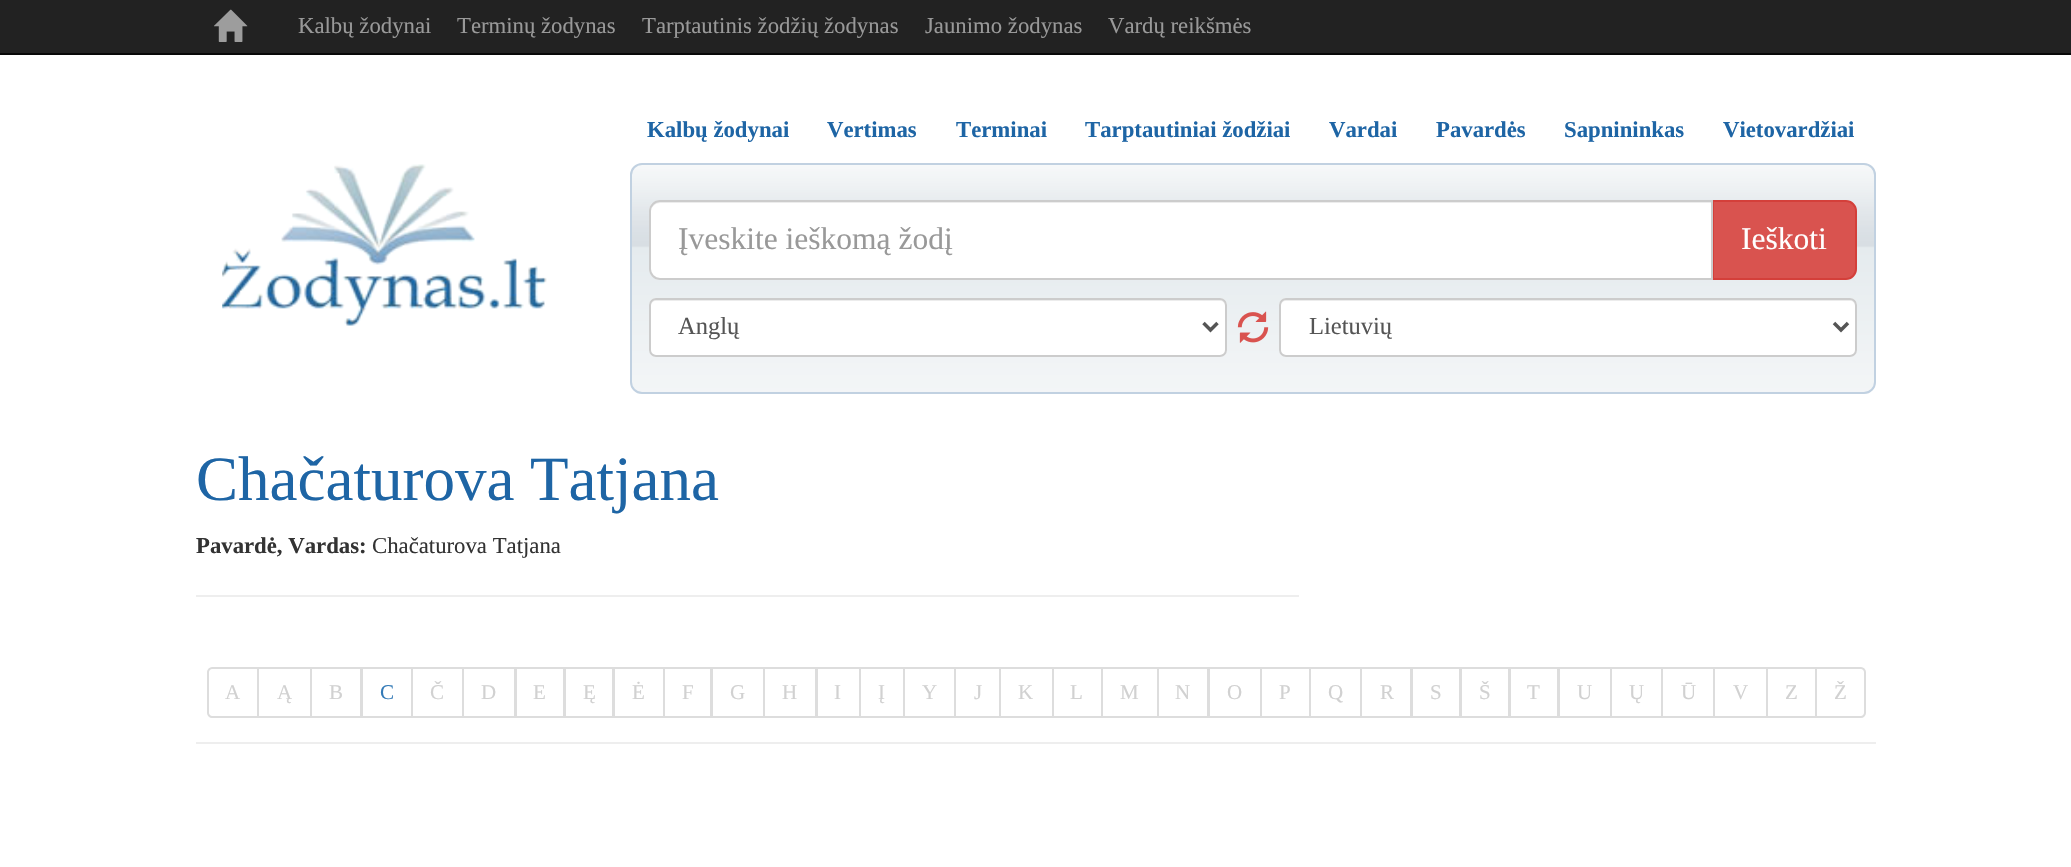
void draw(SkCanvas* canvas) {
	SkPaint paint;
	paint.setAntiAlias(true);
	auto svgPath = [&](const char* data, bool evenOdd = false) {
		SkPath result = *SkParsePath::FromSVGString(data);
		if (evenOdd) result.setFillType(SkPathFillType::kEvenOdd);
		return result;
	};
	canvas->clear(0xffffffff);
	paint.setColor(0xff222222);
	canvas->drawRect(SkRect::MakeXYWH(0, 0, 2071, 53), paint);
	paint.setColor(0xff080808);
	canvas->drawRect(SkRect::MakeXYWH(0, 53, 2071, 2), paint);
	canvas->drawImageRect(SkImages::DeferredFromEncodedData(SkData::MakeFromFileName("img1.png")), SkRect::MakeXYWH(214, 9, 34, 33), SkSamplingOptions());
	SkFont f1(fontMgr->matchFamilyStyle("Liberation Serif", SkFontStyle::Normal()), 22.75);
	f1.setSubpixel(true);
	paint.setColor(0xff999999);
	canvas->drawString("Kalbų žodynai", 298, 33, f1, paint);
	canvas->drawString("Terminų žodynas", 457, 33, f1, paint);
	canvas->drawString("Tarptautinis žodžių žodynas", 642, 33, f1, paint);
	canvas->drawString("Jaunimo žodynas", 925, 33, f1, paint);
	canvas->drawString("Vardų reikšmės", 1108, 33, f1, paint);
	canvas->drawImageRect(SkImages::DeferredFromEncodedData(SkData::MakeFromFileName("img2.png")), SkRect::MakeXYWH(222, 164, 325, 162), SkSamplingOptions());
	SkFont f2(fontMgr->matchFamilyStyle("Liberation Serif", SkFontStyle::Bold()), 22.75);
	f2.setSubpixel(true);
	paint.setColor(0xff1e65a5);
	canvas->drawString("Kalbų žodynai", 647, 137, f2, paint);
	canvas->drawString("Vertimas", 827, 137, f2, paint);
	canvas->drawString("Terminai", 956, 137, f2, paint);
	canvas->drawString("Tarptautiniai žodžiai", 1085, 137, f2, paint);
	canvas->drawString("Vardai", 1329, 137, f2, paint);
	canvas->drawString("Pavardės", 1436, 137, f2, paint);
	canvas->drawString("Sapnininkas", 1564, 137, f2, paint);
	canvas->drawString("Vietovardžiai", 1723, 137, f2, paint);
	canvas->drawImageRect(SkImages::DeferredFromEncodedData(SkData::MakeFromFileName("img3.png")), SkRect::MakeXYWH(630, 164, 1246, 230), SkSamplingOptions());
	paint.setStroke(true);
	paint.setStrokeWidth(2);
	paint.setColor(0xffc1d1e1);
	canvas->drawRoundRect(SkRect::MakeXYWH(631, 164, 1244, 229), 11, 11, paint);
	paint.setStroke(false);
	paint.setColor(0xffd9534f);
	canvas->drawPath(svgPath("M1713 201H1846C1851.5 201 1856 205.5 1856 211V269C1856 274.5 1851.5 279 1846 279H1713Z"), paint);
	paint.setStroke(true);
	paint.setColor(0xffd43f3a);
	canvas->drawPath(svgPath("M1713 201H1846C1851.5 201 1856 205.5 1856 211V269C1856 274.5 1851.5 279 1846 279H1713Z"), paint);
	paint.setStroke(false);
	paint.setColor(0xffffffff);
	canvas->drawPath(svgPath("M660 200H1713V280H660C654 280 649 275 649 269V211C649 205 654 200 660 200Z"), paint);
	paint.setColor(0xffececec);
	canvas->drawPath(svgPath("M660 203H1712V201H660C654 201 651 206 651 212C651 207 655 203 660 203Z"), paint);
	paint.setStroke(true);
	paint.setColor(0xffcccccc);
	canvas->drawPath(svgPath("M660 201H1712V279H660C654.5 279 650 274.5 650 269V211C650 205.5 654.5 201 660 201Z"), paint);
	SkFont f3(fontMgr->matchFamilyStyle("Liberation Serif", SkFontStyle::Normal()), 31.5);
	f3.setSubpixel(true);
	paint.setStroke(false);
	paint.setColor(0xff999999);
	canvas->drawString("Įveskite ieškomą žodį", 678, 249, f3, paint);
	paint.setColor(0xffffffff);
	canvas->drawString("Ieškoti", 1741, 249, f3, paint);
	canvas->drawRoundRect(SkRect::MakeXYWH(649, 298, 578, 59), 7, 7, paint);
	paint.setColor(0xffececec);
	canvas->drawPath(svgPath("M656 301H1220C1223 301 1225 303 1225 306V304C1225 301 1223 299 1220 299H656C653 299 651 301 651 304V306C651 303 653 301 656 301Z"), paint);
	paint.setStroke(true);
	paint.setColor(0xffcccccc);
	canvas->drawRoundRect(SkRect::MakeXYWH(650, 299, 576, 57), 6, 6, paint);
	paint.setStrokeWidth(3.5);
	paint.setColor(0xff555555);
	canvas->drawPath(svgPath("M1203.5 323L1210.5 330L1217.5 323"), paint);
	SkFont f4(fontMgr->matchFamilyStyle("Liberation Serif", SkFontStyle::Normal()), 24.5);
	f4.setSubpixel(true);
	paint.setStroke(false);
	canvas->drawString("Anglų", 678, 334, f4, paint);
	canvas->drawImageRect(SkImages::DeferredFromEncodedData(SkData::MakeFromFileName("img4.png")), SkRect::MakeXYWH(1237, 311, 32, 32), SkSamplingOptions());
	paint.setColor(0xffffffff);
	canvas->drawRoundRect(SkRect::MakeXYWH(1279, 298, 578, 59), 7, 7, paint);
	paint.setColor(0xffececec);
	canvas->drawPath(svgPath("M1286 301H1850C1853 301 1855 303 1855 306V304C1855 301 1853 299 1850 299H1286C1283 299 1281 301 1281 304V306C1281 303 1283 301 1286 301Z"), paint);
	paint.setStroke(true);
	paint.setStrokeWidth(2);
	paint.setColor(0xffcccccc);
	canvas->drawRoundRect(SkRect::MakeXYWH(1280, 299, 576, 57), 6, 6, paint);
	paint.setStrokeWidth(3.5);
	paint.setColor(0xff555555);
	canvas->drawPath(svgPath("M1834 323L1841 330L1848 323"), paint);
	paint.setStroke(false);
	canvas->drawString("Lietuvių", 1309, 334, f4, paint);
	SkFont f5(fontMgr->matchFamilyStyle("Liberation Serif", SkFontStyle::Normal()), 63);
	f5.setSubpixel(true);
	paint.setColor(0xff1e65a5);
	canvas->drawString("Chačaturova Tatjana", 196, 500, f5, paint);
	paint.setColor(0xff333333);
	canvas->drawString("Pavardė, Vardas:", 196, 553, f2, paint);
	canvas->drawString("Chačaturova Tatjana", 372, 553, f1, paint);
	paint.setColor(0xffeeeeee);
	canvas->drawRect(SkRect::MakeXYWH(196, 595, 1103, 2), paint);
	paint.setStroke(true);
	paint.setStrokeWidth(2);
	paint.setColor(0xffdddddd);
	canvas->drawPath(svgPath("M212 668H258V717H212C210 717 208 715 208 713V672C208 670 210 668 212 668Z"), paint);
	SkFont f6(fontMgr->matchFamilyStyle("Liberation Serif", SkFontStyle::Normal()), 21);
	f6.setSubpixel(true);
	paint.setStroke(false);
	paint.setColor(0xffd1d1d1);
	canvas->drawString("A", 225, 699, f6, paint);
	paint.setStroke(true);
	paint.setColor(0xffdddddd);
	canvas->drawRect(SkRect::MakeXYWH(258, 668, 53, 49), paint);
	paint.setStroke(false);
	paint.setColor(0xffd1d1d1);
	canvas->drawString("Ą", 277, 699, f6, paint);
	paint.setStroke(true);
	paint.setColor(0xffdddddd);
	canvas->drawRect(SkRect::MakeXYWH(311, 668, 50, 49), paint);
	paint.setStroke(false);
	paint.setColor(0xffd1d1d1);
	canvas->drawString("B", 329, 699, f6, paint);
	paint.setStroke(true);
	paint.setColor(0xffdddddd);
	canvas->drawRect(SkRect::MakeXYWH(362, 668, 50, 49), paint);
	paint.setStroke(false);
	paint.setColor(0xff337ab7);
	canvas->drawString("C", 380, 699, f6, paint);
	paint.setStroke(true);
	paint.setColor(0xffdddddd);
	canvas->drawRect(SkRect::MakeXYWH(412, 668, 51, 49), paint);
	paint.setStroke(false);
	paint.setColor(0xffd1d1d1);
	canvas->drawString("Č", 430, 699, f6, paint);
	paint.setStroke(true);
	paint.setColor(0xffdddddd);
	canvas->drawRect(SkRect::MakeXYWH(463, 668, 52, 49), paint);
	paint.setStroke(false);
	paint.setColor(0xffd1d1d1);
	canvas->drawString("D", 481, 699, f6, paint);
	paint.setStroke(true);
	paint.setColor(0xffdddddd);
	canvas->drawRect(SkRect::MakeXYWH(516, 668, 48, 49), paint);
	paint.setStroke(false);
	paint.setColor(0xffd1d1d1);
	canvas->drawString("E", 533, 699, f6, paint);
	paint.setStroke(true);
	paint.setColor(0xffdddddd);
	canvas->drawRect(SkRect::MakeXYWH(565, 668, 48, 49), paint);
	paint.setStroke(false);
	paint.setColor(0xffd1d1d1);
	canvas->drawString("Ę", 583, 699, f6, paint);
	paint.setStroke(true);
	paint.setColor(0xffdddddd);
	canvas->drawRect(SkRect::MakeXYWH(614, 668, 50, 49), paint);
	paint.setStroke(false);
	paint.setColor(0xffd1d1d1);
	canvas->drawString("Ė", 632, 699, f6, paint);
	paint.setStroke(true);
	paint.setColor(0xffdddddd);
	canvas->drawRect(SkRect::MakeXYWH(664, 668, 47, 49), paint);
	paint.setStroke(false);
	paint.setColor(0xffd1d1d1);
	canvas->drawString("F", 682, 699, f6, paint);
	paint.setStroke(true);
	paint.setColor(0xffdddddd);
	canvas->drawRect(SkRect::MakeXYWH(712, 668, 52, 49), paint);
	paint.setStroke(false);
	paint.setColor(0xffd1d1d1);
	canvas->drawString("G", 730, 699, f6, paint);
	paint.setStroke(true);
	paint.setColor(0xffdddddd);
	canvas->drawRect(SkRect::MakeXYWH(764, 668, 52, 49), paint);
	paint.setStroke(false);
	paint.setColor(0xffd1d1d1);
	canvas->drawString("H", 782, 699, f6, paint);
	paint.setStroke(true);
	paint.setColor(0xffdddddd);
	canvas->drawRect(SkRect::MakeXYWH(817, 668, 43, 49), paint);
	paint.setStroke(false);
	paint.setColor(0xffd1d1d1);
	canvas->drawString("I", 834, 699, f6, paint);
	paint.setStroke(true);
	paint.setColor(0xffdddddd);
	canvas->drawRect(SkRect::MakeXYWH(860, 668, 44, 49), paint);
	paint.setStroke(false);
	paint.setColor(0xffd1d1d1);
	canvas->drawString("Į", 878, 699, f6, paint);
	paint.setStroke(true);
	paint.setColor(0xffdddddd);
	canvas->drawRect(SkRect::MakeXYWH(904, 668, 51, 49), paint);
	paint.setStroke(false);
	paint.setColor(0xffd1d1d1);
	canvas->drawString("Y", 922, 699, f6, paint);
	paint.setStroke(true);
	paint.setColor(0xffdddddd);
	canvas->drawRect(SkRect::MakeXYWH(955, 668, 45, 49), paint);
	paint.setStroke(false);
	paint.setColor(0xffd1d1d1);
	canvas->drawString("J", 974, 699, f6, paint);
	paint.setStroke(true);
	paint.setColor(0xffdddddd);
	canvas->drawRect(SkRect::MakeXYWH(1000, 668, 53, 49), paint);
	paint.setStroke(false);
	paint.setColor(0xffd1d1d1);
	canvas->drawString("K", 1018, 699, f6, paint);
	paint.setStroke(true);
	paint.setColor(0xffdddddd);
	canvas->drawRect(SkRect::MakeXYWH(1053, 668, 49, 49), paint);
	paint.setStroke(false);
	paint.setColor(0xffd1d1d1);
	canvas->drawString("L", 1070, 699, f6, paint);
	paint.setStroke(true);
	paint.setColor(0xffdddddd);
	canvas->drawRect(SkRect::MakeXYWH(1102, 668, 56, 49), paint);
	paint.setStroke(false);
	paint.setColor(0xffd1d1d1);
	canvas->drawString("M", 1120, 699, f6, paint);
	paint.setStroke(true);
	paint.setColor(0xffdddddd);
	canvas->drawRect(SkRect::MakeXYWH(1158, 668, 50, 49), paint);
	paint.setStroke(false);
	paint.setColor(0xffd1d1d1);
	canvas->drawString("N", 1175, 699, f6, paint);
	paint.setStroke(true);
	paint.setColor(0xffdddddd);
	canvas->drawRect(SkRect::MakeXYWH(1209, 668, 52, 49), paint);
	paint.setStroke(false);
	paint.setColor(0xffd1d1d1);
	canvas->drawString("O", 1227, 699, f6, paint);
	paint.setStroke(true);
	paint.setColor(0xffdddddd);
	canvas->drawRect(SkRect::MakeXYWH(1261, 668, 49, 49), paint);
	paint.setStroke(false);
	paint.setColor(0xffd1d1d1);
	canvas->drawString("P", 1279, 699, f6, paint);
	paint.setStroke(true);
	paint.setColor(0xffdddddd);
	canvas->drawRect(SkRect::MakeXYWH(1310, 668, 51, 49), paint);
	paint.setStroke(false);
	paint.setColor(0xffd1d1d1);
	canvas->drawString("Q", 1328, 699, f6, paint);
	paint.setStroke(true);
	paint.setColor(0xffdddddd);
	canvas->drawRect(SkRect::MakeXYWH(1361, 668, 50, 49), paint);
	paint.setStroke(false);
	paint.setColor(0xffd1d1d1);
	canvas->drawString("R", 1380, 699, f6, paint);
	paint.setStroke(true);
	paint.setColor(0xffdddddd);
	canvas->drawRect(SkRect::MakeXYWH(1412, 668, 48, 49), paint);
	paint.setStroke(false);
	paint.setColor(0xffd1d1d1);
	canvas->drawString("S", 1430, 699, f6, paint);
	paint.setStroke(true);
	paint.setColor(0xffdddddd);
	canvas->drawRect(SkRect::MakeXYWH(1461, 668, 48, 49), paint);
	paint.setStroke(false);
	paint.setColor(0xffd1d1d1);
	canvas->drawString("Š", 1479, 699, f6, paint);
	paint.setStroke(true);
	paint.setColor(0xffdddddd);
	canvas->drawRect(SkRect::MakeXYWH(1510, 668, 48, 49), paint);
	paint.setStroke(false);
	paint.setColor(0xffd1d1d1);
	canvas->drawString("T", 1527, 699, f6, paint);
	paint.setStroke(true);
	paint.setColor(0xffdddddd);
	canvas->drawRect(SkRect::MakeXYWH(1559, 668, 52, 49), paint);
	paint.setStroke(false);
	paint.setColor(0xffd1d1d1);
	canvas->drawString("U", 1577, 699, f6, paint);
	paint.setStroke(true);
	paint.setColor(0xffdddddd);
	canvas->drawRect(SkRect::MakeXYWH(1611, 668, 51, 49), paint);
	paint.setStroke(false);
	paint.setColor(0xffd1d1d1);
	canvas->drawString("Ų", 1629, 699, f6, paint);
	paint.setStroke(true);
	paint.setColor(0xffdddddd);
	canvas->drawRect(SkRect::MakeXYWH(1662, 668, 52, 49), paint);
	paint.setStroke(false);
	paint.setColor(0xffd1d1d1);
	canvas->drawString("Ū", 1681, 699, f6, paint);
	paint.setStroke(true);
	paint.setColor(0xffdddddd);
	canvas->drawRect(SkRect::MakeXYWH(1714, 668, 53, 49), paint);
	paint.setStroke(false);
	paint.setColor(0xffd1d1d1);
	canvas->drawString("V", 1733, 699, f6, paint);
	paint.setStroke(true);
	paint.setColor(0xffdddddd);
	canvas->drawRect(SkRect::MakeXYWH(1767, 668, 49, 49), paint);
	paint.setStroke(false);
	paint.setColor(0xffd1d1d1);
	canvas->drawString("Z", 1785, 699, f6, paint);
	paint.setColor(0xffffffff);
	canvas->drawPath(svgPath("M1816 668H1861C1863 668 1865 670 1865 672V713C1865 715 1863 717 1861 717H1816Z"), paint);
	paint.setStroke(true);
	paint.setColor(0xffdddddd);
	canvas->drawPath(svgPath("M1816 668H1861C1863 668 1865 670 1865 672V713C1865 715 1863 717 1861 717H1816Z"), paint);
	paint.setStroke(false);
	paint.setColor(0xffd1d1d1);
	canvas->drawString("Ž", 1834, 699, f6, paint);
	paint.setColor(0xffeeeeee);
	canvas->drawRect(SkRect::MakeXYWH(196, 742, 1680, 2), paint);
}
